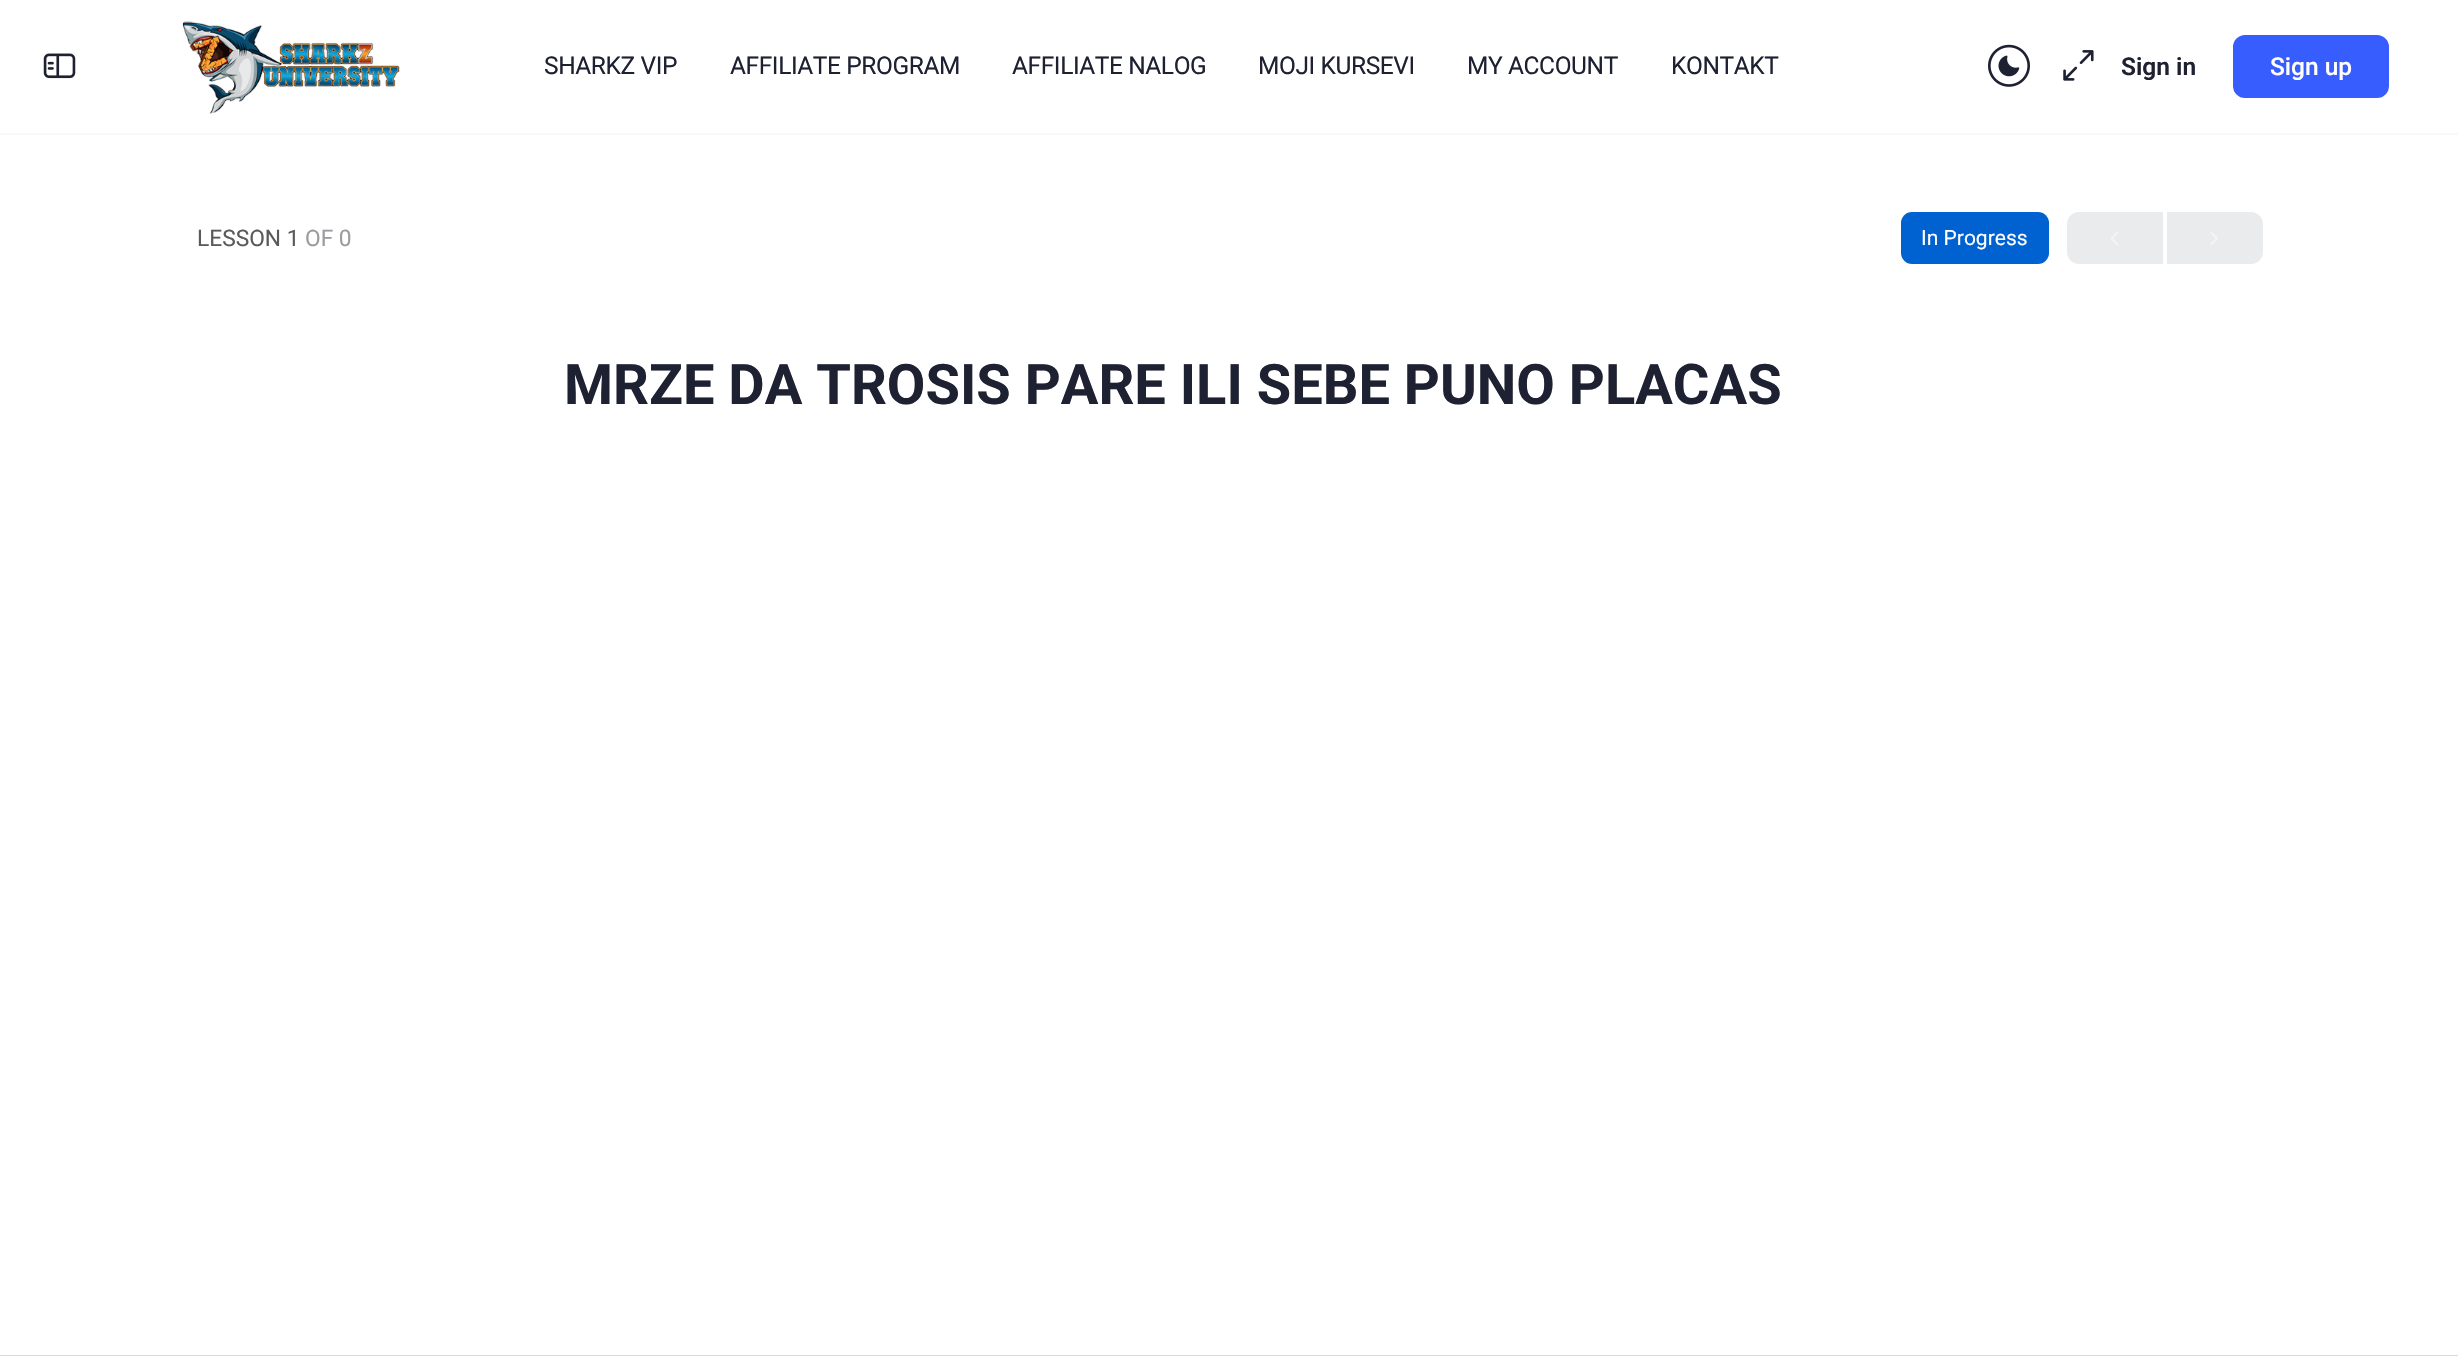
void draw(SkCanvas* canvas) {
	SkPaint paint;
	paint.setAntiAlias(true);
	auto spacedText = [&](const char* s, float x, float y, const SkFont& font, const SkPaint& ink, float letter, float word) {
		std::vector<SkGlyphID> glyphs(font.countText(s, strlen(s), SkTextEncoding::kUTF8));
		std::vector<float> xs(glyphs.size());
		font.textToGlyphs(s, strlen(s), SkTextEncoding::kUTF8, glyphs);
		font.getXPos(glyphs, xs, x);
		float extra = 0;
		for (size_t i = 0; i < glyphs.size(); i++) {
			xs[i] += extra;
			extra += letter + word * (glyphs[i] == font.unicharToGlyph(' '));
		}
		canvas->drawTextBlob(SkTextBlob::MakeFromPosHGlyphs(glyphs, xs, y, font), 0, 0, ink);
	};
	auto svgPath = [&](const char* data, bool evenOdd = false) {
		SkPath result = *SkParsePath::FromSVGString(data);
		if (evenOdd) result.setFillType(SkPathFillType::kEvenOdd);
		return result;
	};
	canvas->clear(0xffffffff);
	paint.setColor(0x0d8b8d9d);
	canvas->drawPath(svgPath("M0 133V135H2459V2V133Z"), paint);
	canvas->drawImageRect(SkImages::DeferredFromEncodedData(SkData::MakeFromFileName("img1.png")), SkRect::MakeXYWH(43, 53, 33, 26), SkSamplingOptions());
	canvas->drawImageRect(SkImages::DeferredFromEncodedData(SkData::MakeFromFileName("img2.png")), SkRect::MakeXYWH(182, 21, 218, 93), SkSamplingOptions());
	SkFont f1(fontMgr->matchFamilyStyle("Roboto", SkFontStyle::Normal()), 24.5);
	f1.setSubpixel(true);
	paint.setColor(0xff1e2132);
	spacedText("SHARKZ VIP", 544, 74, f1, paint, -0.4, 0);
	spacedText("AFFILIATE PROGRAM", 730, 74, f1, paint, -0.4, 0);
	spacedText("AFFILIATE NALOG", 1012, 74, f1, paint, -0.4, 0);
	spacedText("MOJI KURSEVI", 1258, 74, f1, paint, -0.4, 0);
	spacedText("MY ACCOUNT", 1467, 74, f1, paint, -0.4, 0);
	spacedText("KONTAKT", 1671, 74, f1, paint, -0.4, 0);
	canvas->drawImageRect(SkImages::DeferredFromEncodedData(SkData::MakeFromFileName("img3.png")), SkRect::MakeXYWH(1988, 44, 42, 43), SkSamplingOptions());
	canvas->drawImageRect(SkImages::DeferredFromEncodedData(SkData::MakeFromFileName("img4.png")), SkRect::MakeXYWH(2063, 50, 31, 31), SkSamplingOptions());
	SkFont f2(fontMgr->matchFamilyStyle("Roboto", SkFontStyle(600, SkFontStyle::kNormal_Width, SkFontStyle::kUpright_Slant)), 24.5);
	f2.setSubpixel(true);
	canvas->drawString("Sign in", 2121, 75, f2, paint);
	paint.setColor(0xff385dff);
	canvas->drawRoundRect(SkRect::MakeXYWH(2234, 36, 154, 61), 11, 11, paint);
	paint.setStroke(true);
	paint.setStrokeWidth(2);
	canvas->drawRoundRect(SkRect::MakeXYWH(2234, 36, 154, 61), 11, 11, paint);
	SkFont f3(fontMgr->matchFamilyStyle("Roboto", SkFontStyle(500, SkFontStyle::kNormal_Width, SkFontStyle::kUpright_Slant)), 24.5);
	f3.setSubpixel(true);
	paint.setStroke(false);
	paint.setColor(0xffffffff);
	canvas->drawString("Sign up", 2270, 75, f3, paint);
	paint.setColor(0xffd6d9dd);
	canvas->drawRect(SkRect::MakeXYWH(0, 1355, 2458, 1), paint);
	SkFont f4(fontMgr->matchFamilyStyle("Roboto", SkFontStyle::Normal()), 22.75);
	f4.setSubpixel(true);
	paint.setColor(0xff5a5a5a);
	canvas->drawString("LESSON 1", 197, 246, f4, paint);
	paint.setColor(0xff9b9c9f);
	canvas->drawString("OF 0", 305, 246, f4, paint);
	paint.setColor(0xff0061d1);
	canvas->drawRoundRect(SkRect::MakeXYWH(1901, 212, 148, 52), 11, 11, paint);
	SkFont f5(fontMgr->matchFamilyStyle("Roboto", SkFontStyle::Normal()), 21);
	f5.setSubpixel(true);
	paint.setColor(0xffffffff);
	canvas->drawString("In Progress", 1921, 245, f5, paint);
	paint.setColor(0xffe9ebed);
	canvas->drawPath(svgPath("M2079 212H2163V264H2079C2072.5 264 2067 258.5 2067 252V224C2067 217.5 2072.5 212 2079 212Z"), paint);
	canvas->drawImageRect(SkImages::DeferredFromEncodedData(SkData::MakeFromFileName("img5.png")), SkRect::MakeXYWH(2110, 232, 8, 13), SkSamplingOptions());
	canvas->drawPath(svgPath("M2167 212H2251C2257.5 212 2263 217.5 2263 224V252C2263 258.5 2257.5 264 2251 264H2167Z"), paint);
	canvas->drawImageRect(SkImages::DeferredFromEncodedData(SkData::MakeFromFileName("img6.png")), SkRect::MakeXYWH(2210, 232, 8, 13), SkSamplingOptions());
	SkFont f6(fontMgr->matchFamilyStyle("Roboto", SkFontStyle::Bold()), 56);
	f6.setSubpixel(true);
	paint.setColor(0xff1e2132);
	canvas->drawString("MRZE DA TROSIS PARE ILI SEBE PUNO PLACAS", 564, 404, f6, paint);
}
